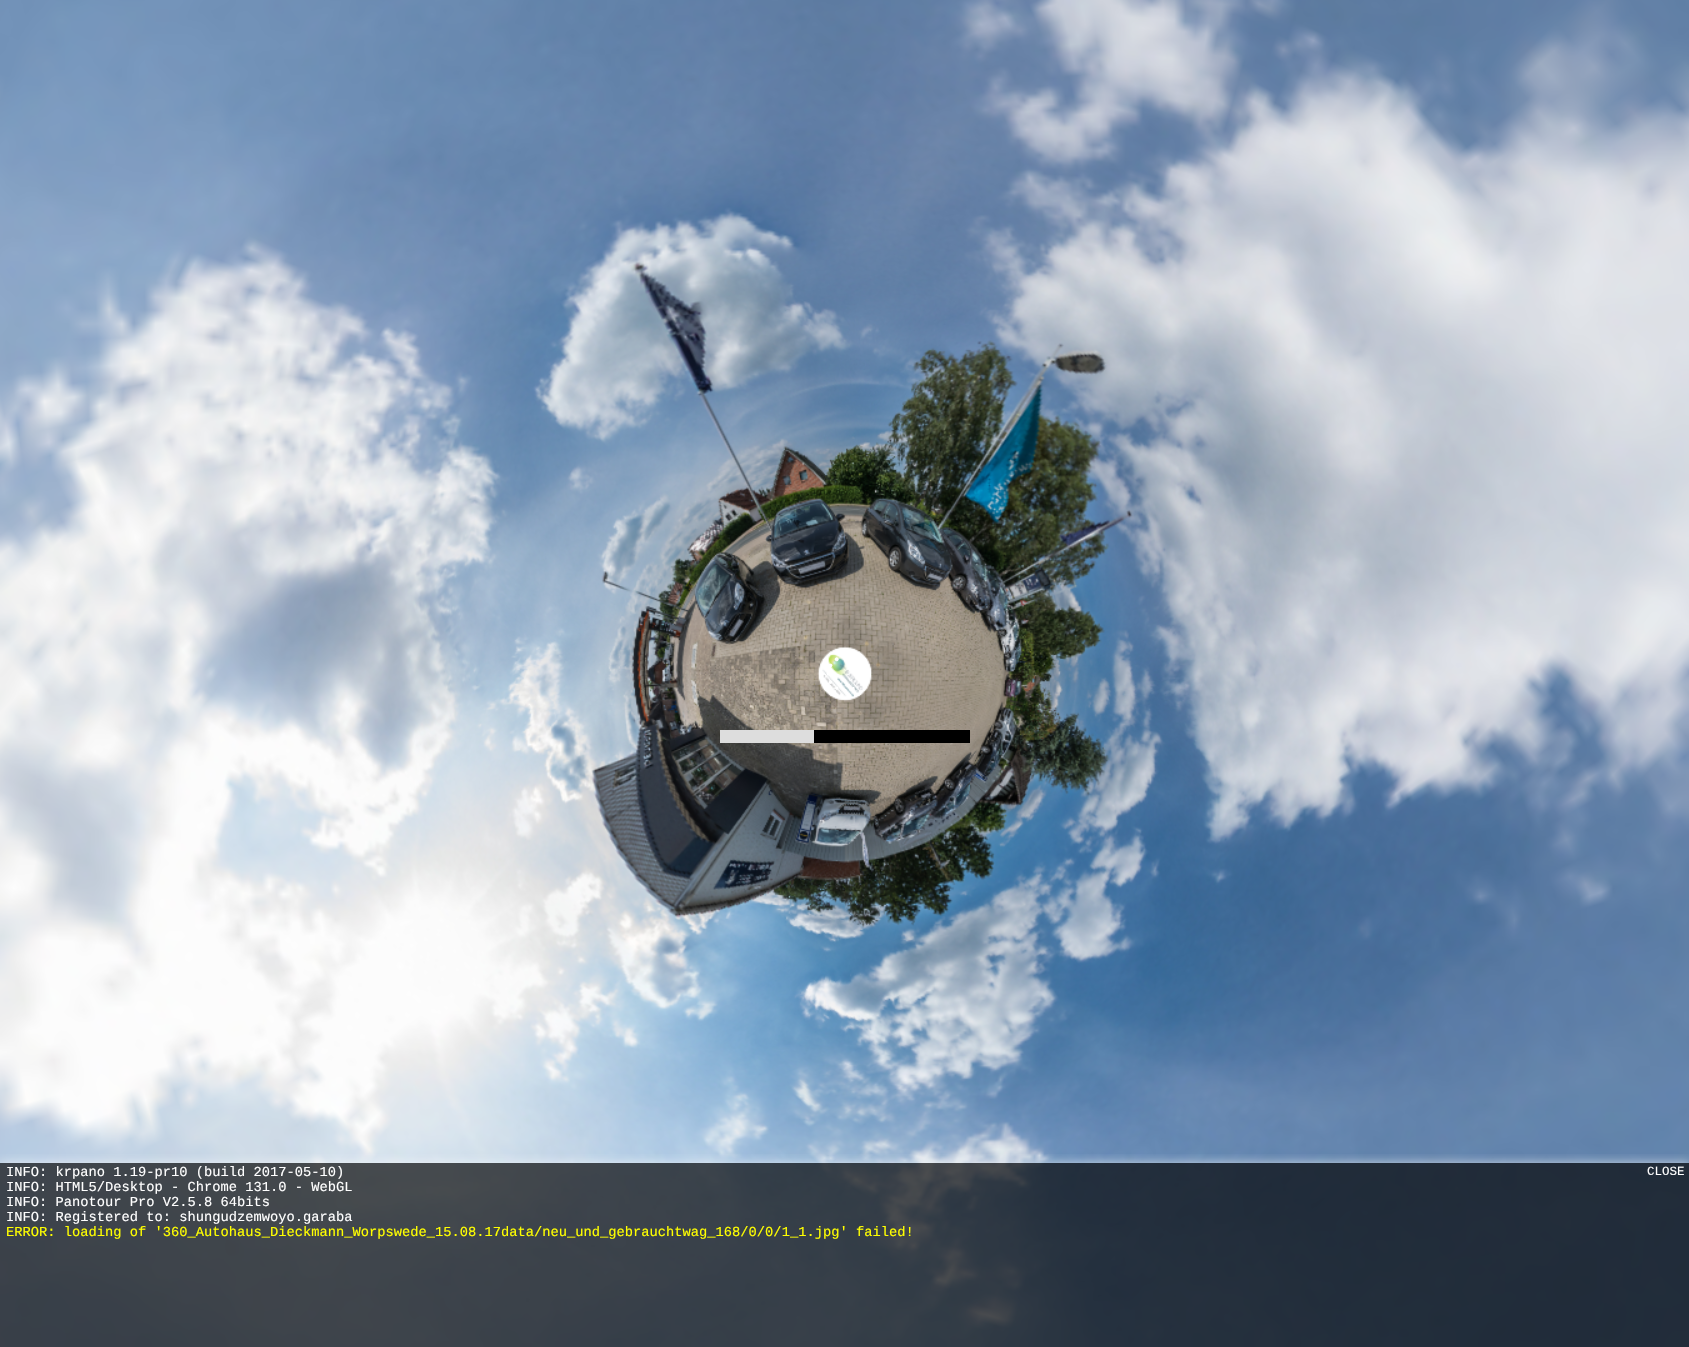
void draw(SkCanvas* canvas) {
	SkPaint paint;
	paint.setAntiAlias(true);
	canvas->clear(0xffffffff);
	canvas->drawImageRect(SkImages::DeferredFromEncodedData(SkData::MakeFromFileName("img1.png")), SkRect::MakeXYWH(0, 0, 1689, 1347), SkSamplingOptions());
	canvas->drawImageRect(SkImages::DeferredFromEncodedData(SkData::MakeFromFileName("img2.png")), SkRect::MakeXYWH(826, 657, 29, 33), SkSamplingOptions());
	paint.setColor(0xff000000);
	canvas->drawRect(SkRect::MakeXYWH(814, 730, 156, 13), paint);
	paint.setColor(0xffdddddd);
	canvas->drawRect(SkRect::MakeXYWH(720, 730, 94, 13), paint);
	canvas->save();
	canvas->clipRect(SkRect::MakeXYWH(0, 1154, 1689, 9));
	paint.setColor(0xabffffff);
	paint.setMaskFilter(SkMaskFilter::MakeBlur(kNormal_SkBlurStyle, 5));
	canvas->drawRect(SkRect::MakeXYWH(0, 1163, 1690, 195), paint);
	paint.setMaskFilter(nullptr);
	canvas->restore();
	paint.setColor(0xab000000);
	canvas->drawRect(SkRect::MakeXYWH(0, 1163, 1689, 184), paint);
	SkFont f1(fontMgr->matchFamilyStyle("Liberation Mono", SkFontStyle::Normal()), 13.75);
	f1.setSubpixel(true);
	paint.setColor(0xffffffff);
	canvas->drawString("INFO: krpano 1.19-pr10 (build 2017-05-10)", 6, 1176, f1, paint);
	canvas->drawString("INFO: HTML5/Desktop - Chrome 131.0 - WebGL", 6, 1191, f1, paint);
	canvas->drawString("INFO: Panotour Pro V2.5.8 64bits", 6, 1206, f1, paint);
	canvas->drawString("INFO: Registered to: shungudzemwoyo.garaba", 6, 1221, f1, paint);
	paint.setColor(0xffffff00);
	canvas->drawString("ERROR: loading of '360_Autohaus_Dieckmann_Worpswede_15.08.17data/neu_und_gebrauchtwag_168/0/0/1_1.jpg' failed!", 6, 1236, f1, paint);
	SkFont f2(fontMgr->matchFamilyStyle("Liberation Mono", SkFontStyle::Normal()), 12.5);
	f2.setSubpixel(true);
	paint.setColor(0xffffffff);
	canvas->drawString("CLOSE", 1647, 1175, f2, paint);
}
